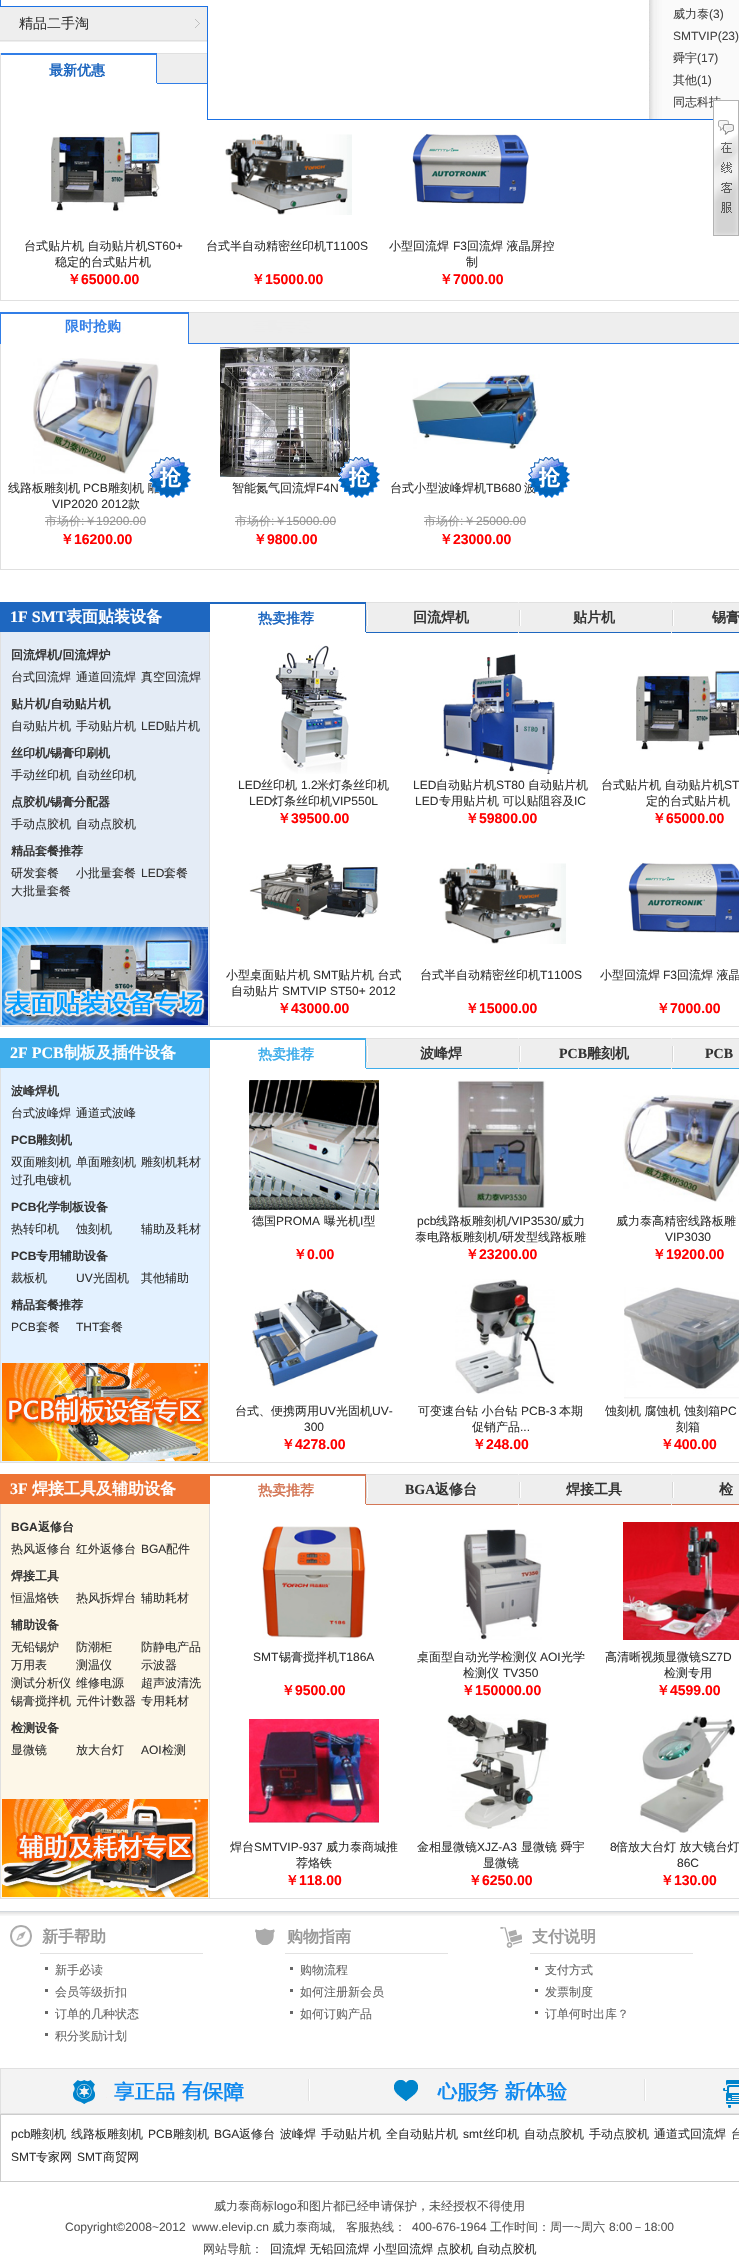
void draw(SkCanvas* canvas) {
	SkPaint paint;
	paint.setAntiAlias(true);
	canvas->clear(0xffffffff);
	paint.setColor(0xffeeeeee);
	canvas->drawRect(SkRect::MakeXYWH(0, 7, 207, 35), paint);
	paint.setColor(0xffe0e0e0);
	canvas->drawRect(SkRect::MakeXYWH(0, 40, 210, 1), paint);
	canvas->drawImageRect(SkImages::DeferredFromEncodedData(SkData::MakeFromFileName("img1.png")), SkRect::MakeXYWH(195, 19, 5, 9), SkSamplingOptions());
	SkFont f1(fontMgr->matchFamilyStyle("WenQuanYi Zen Hei", SkFontStyle(500, SkFontStyle::kNormal_Width, SkFontStyle::kUpright_Slant)), 14);
	f1.setSubpixel(true);
	paint.setColor(0xff333333);
	canvas->drawString("精品二手淘", 19, 28, f1, paint);
	paint.setColor(0xffffffff);
	canvas->drawRect(SkRect::MakeXYWH(208, 40, 2, 1), paint);
	canvas->drawImageRect(SkImages::DeferredFromEncodedData(SkData::MakeFromFileName("img2.png")), SkRect::MakeXYWH(649, 0, 90, 119), SkSamplingOptions());
	paint.setStroke(true);
	paint.setStrokeWidth(1);
	paint.setColor(0xff1b71e4);
	canvas->drawRect(SkRect::MakeXYWH(207.5, -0.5, 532, 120), paint);
	paint.setStroke(false);
	paint.setColor(0xffffffff);
	canvas->drawRect(SkRect::MakeXYWH(207, 0, 1, 6), paint);
	paint.setColor(0xff1b71e4);
	canvas->drawRect(SkRect::MakeXYWH(0, 6, 208, 1), paint);
	canvas->drawRect(SkRect::MakeXYWH(0, 0, 1, 7), paint);
	SkFont f2(fontMgr->matchFamilyStyle("WenQuanYi Zen Hei", SkFontStyle(500, SkFontStyle::kNormal_Width, SkFontStyle::kUpright_Slant)), 12);
	f2.setSubpixel(true);
	paint.setColor(0xff444444);
	canvas->drawString("威力泰", 673, 18, f2, paint);
	SkFont f3(fontMgr->matchFamilyStyle("Liberation Sans", SkFontStyle::Normal()), 12);
	f3.setSubpixel(true);
	canvas->drawString("(3)", 709, 18, f3, paint);
	canvas->drawString("SMTVIP(23)", 673, 40, f3, paint);
	canvas->drawString("舜宇", 673, 62, f2, paint);
	canvas->drawString("(17)", 697, 62, f3, paint);
	canvas->drawString("其他", 673, 84, f2, paint);
	canvas->drawString("(1)", 697, 84, f3, paint);
	canvas->drawString("同志科技", 673, 106, f2, paint);
	paint.setColor(0xffe0e0e0);
	canvas->drawRect(SkRect::MakeXYWH(0, 300, 739, 1), paint);
	canvas->drawRect(SkRect::MakeXYWH(0, 53, 1, 248), paint);
	canvas->drawRect(SkRect::MakeXYWH(156, 53, 51, 1), paint);
	paint.setColor(0xff317ee7);
	canvas->drawRect(SkRect::MakeXYWH(1, 53, 156, 2), paint);
	canvas->drawRect(SkRect::MakeXYWH(156, 83, 51, 1), paint);
	canvas->drawRect(SkRect::MakeXYWH(156, 53, 1, 31), paint);
	paint.setColor(0xffffffff);
	canvas->drawRect(SkRect::MakeXYWH(156, 83, 1, 1), paint);
	SkFont f4(fontMgr->matchFamilyStyle("WenQuanYi Zen Hei", SkFontStyle::Bold()), 14);
	f4.setSubpixel(true);
	paint.setColor(0xff1e67c0);
	canvas->drawString("最新优惠", 49, 75, f4, paint);
	paint.setColor(0xffeeeeee);
	canvas->drawRect(SkRect::MakeXYWH(157, 54, 50, 29), paint);
	canvas->drawImageRect(SkImages::DeferredFromEncodedData(SkData::MakeFromFileName("img3.png")), SkRect::MakeXYWH(51, 131, 110, 81), SkSamplingOptions());
	paint.setColor(0xff333333);
	canvas->drawString("台式贴片机 自动贴片机", 24, 250, f2, paint);
	canvas->drawString("ST60+", 147, 250, f3, paint);
	canvas->drawString("稳定的台式贴片机", 55, 266, f2, paint);
	paint.setColor(0xffff0000);
	canvas->drawString("￥", 67, 284, f4, paint);
	SkFont f5(fontMgr->matchFamilyStyle("Liberation Sans", SkFontStyle::Bold()), 14);
	f5.setSubpixel(true);
	canvas->drawString("65000.00", 81, 284, f5, paint);
	canvas->drawImageRect(SkImages::DeferredFromEncodedData(SkData::MakeFromFileName("img4.png")), SkRect::MakeXYWH(225, 134, 127, 81), SkSamplingOptions());
	paint.setColor(0xff333333);
	canvas->drawString("台式半自动精密丝印机", 206, 250, f2, paint);
	canvas->drawString("T1100S", 326, 250, f3, paint);
	paint.setColor(0xffff0000);
	canvas->drawString("￥", 251, 284, f4, paint);
	canvas->drawString("15000.00", 265, 284, f5, paint);
	canvas->drawImageRect(SkImages::DeferredFromEncodedData(SkData::MakeFromFileName("img5.png")), SkRect::MakeXYWH(412, 133, 117, 71), SkSamplingOptions());
	paint.setColor(0xff333333);
	canvas->drawString("小型回流焊", 389, 250, f2, paint);
	canvas->drawString("F3", 453, 250, f3, paint);
	canvas->drawString("回流焊 液晶屏控", 467, 250, f2, paint);
	canvas->drawString("制", 466, 266, f2, paint);
	paint.setColor(0xffff0000);
	canvas->drawString("￥", 439, 284, f4, paint);
	canvas->drawString("7000.00", 453, 284, f5, paint);
	canvas->drawImageRect(SkImages::DeferredFromEncodedData(SkData::MakeFromFileName("img6.png")), SkRect::MakeXYWH(0, 312, 739, 32), SkSamplingOptions());
	paint.setColor(0xff317ee7);
	canvas->drawString("限时抢购", 65, 331, f4, paint);
	paint.setColor(0xffe0e0e0);
	canvas->drawRect(SkRect::MakeXYWH(0, 569, 739, 1), paint);
	canvas->drawRect(SkRect::MakeXYWH(0, 344, 1, 226), paint);
	canvas->drawImageRect(SkImages::DeferredFromEncodedData(SkData::MakeFromFileName("img7.png")), SkRect::MakeXYWH(33, 358, 126, 116), SkSamplingOptions());
	paint.setColor(0xff333333);
	canvas->drawString("雕刻机 雕", 108, 492, f2, paint);
	canvas->drawImageRect(SkImages::DeferredFromEncodedData(SkData::MakeFromFileName("img8.png")), SkRect::MakeXYWH(149, 457, 42, 41), SkSamplingOptions());
	canvas->drawString("线路板雕刻机", 8, 492, f2, paint);
	canvas->drawString("PCB", 83, 492, f3, paint);
	canvas->drawString("VIP2020 2012", 52, 508, f3, paint);
	canvas->drawString("款", 128, 508, f2, paint);
	paint.setColor(0xff999999);
	canvas->drawString("市场价 ￥", 45, 525, f2, paint);
	canvas->drawString("19200.00", 96, 525, f3, paint);
	canvas->drawString(":", 81, 525, f3, paint);
	canvas->drawRect(SkRect::MakeXYWH(45, 521, 101, 1), paint);
	paint.setColor(0xffff0000);
	canvas->drawString("￥", 60, 544, f4, paint);
	canvas->drawString("16200.00", 74, 544, f5, paint);
	canvas->drawImageRect(SkImages::DeferredFromEncodedData(SkData::MakeFromFileName("img9.png")), SkRect::MakeXYWH(220, 347, 130, 130), SkSamplingOptions());
	canvas->drawImageRect(SkImages::DeferredFromEncodedData(SkData::MakeFromFileName("img10.png")), SkRect::MakeXYWH(338, 457, 42, 41), SkSamplingOptions());
	paint.setColor(0xff333333);
	canvas->drawString("智能氮气回流焊", 232, 492, f2, paint);
	canvas->drawString("F4N", 316, 492, f3, paint);
	paint.setColor(0xff999999);
	canvas->drawString("市场价 ￥", 235, 525, f2, paint);
	canvas->drawString("15000.00", 286, 525, f3, paint);
	canvas->drawString(":", 271, 525, f3, paint);
	canvas->drawRect(SkRect::MakeXYWH(235, 521, 101, 1), paint);
	paint.setColor(0xffff0000);
	canvas->drawString("￥", 253, 544, f4, paint);
	canvas->drawString("9800.00", 267, 544, f5, paint);
	canvas->drawImageRect(SkImages::DeferredFromEncodedData(SkData::MakeFromFileName("img11.png")), SkRect::MakeXYWH(412, 374, 128, 75), SkSamplingOptions());
	paint.setColor(0xff333333);
	canvas->drawString("台式小型波峰焊机", 390, 492, f2, paint);
	canvas->drawString("TB680", 486, 492, f3, paint);
	canvas->drawString("波", 524, 492, f2, paint);
	canvas->drawImageRect(SkImages::DeferredFromEncodedData(SkData::MakeFromFileName("img12.png")), SkRect::MakeXYWH(528, 457, 42, 41), SkSamplingOptions());
	paint.setColor(0xff999999);
	canvas->drawString("市场价 ￥", 424, 525, f2, paint);
	canvas->drawString("25000.00", 476, 525, f3, paint);
	canvas->drawString(":", 460, 525, f3, paint);
	canvas->drawRect(SkRect::MakeXYWH(424, 521, 102, 1), paint);
	paint.setColor(0xffff0000);
	canvas->drawString("￥", 439, 544, f4, paint);
	canvas->drawString("23000.00", 453, 544, f5, paint);
	paint.setColor(0xff1e67c0);
	canvas->drawRect(SkRect::MakeXYWH(0, 602, 210, 30), paint);
	SkFont f6(fontMgr->matchFamilyStyle("Liberation Serif", SkFontStyle::Bold()), 16);
	f6.setSubpixel(true);
	paint.setColor(0xffffffff);
	canvas->drawString("1F SMT", 10, 622, f6, paint);
	SkFont f7(fontMgr->matchFamilyStyle("WenQuanYi Zen Hei", SkFontStyle::Bold()), 16);
	f7.setSubpixel(true);
	canvas->drawString("表面贴装设备", 66, 622, f7, paint);
	paint.setColor(0xffe4ecf6);
	canvas->drawRect(SkRect::MakeXYWH(1, 632, 208, 394), paint);
	paint.setColor(0xffe0e0e0);
	canvas->drawRect(SkRect::MakeXYWH(209, 632, 1, 395), paint);
	canvas->drawRect(SkRect::MakeXYWH(0, 1026, 210, 1), paint);
	canvas->drawRect(SkRect::MakeXYWH(0, 632, 1, 395), paint);
	SkFont f8(fontMgr->matchFamilyStyle("WenQuanYi Zen Hei", SkFontStyle::Bold()), 12);
	f8.setSubpixel(true);
	paint.setColor(0xff333333);
	canvas->drawString("回流焊机 回流焊炉", 11, 659, f8, paint);
	SkFont f9(fontMgr->matchFamilyStyle("Liberation Sans", SkFontStyle::Bold()), 12);
	f9.setSubpixel(true);
	canvas->drawString("/", 59, 659, f9, paint);
	canvas->drawString("台式回流焊", 11, 681, f2, paint);
	canvas->drawString("通道回流焊", 76, 681, f2, paint);
	canvas->drawString("真空回流焊", 141, 681, f2, paint);
	canvas->drawString("贴片机 自动贴片机", 11, 708, f8, paint);
	canvas->drawString("/", 47, 708, f9, paint);
	canvas->drawString("自动贴片机", 11, 730, f2, paint);
	canvas->drawString("手动贴片机", 76, 730, f2, paint);
	canvas->drawString("LED", 141, 730, f3, paint);
	canvas->drawString("贴片机", 164, 730, f2, paint);
	canvas->drawString("丝印机", 11, 757, f8, paint);
	canvas->drawString("/", 47, 757, f9, paint);
	canvas->drawString("锡膏印刷机", 50, 757, f8, paint);
	canvas->drawString("手动丝印机", 11, 779, f2, paint);
	canvas->drawString("自动丝印机", 76, 779, f2, paint);
	canvas->drawString("点胶机", 11, 806, f8, paint);
	canvas->drawString("/", 47, 806, f9, paint);
	canvas->drawString("锡膏分配器", 50, 806, f8, paint);
	canvas->drawString("手动点胶机", 11, 828, f2, paint);
	canvas->drawString("自动点胶机", 76, 828, f2, paint);
	canvas->drawString("精品套餐推荐", 11, 855, f8, paint);
	canvas->drawString("研发套餐", 11, 877, f2, paint);
	canvas->drawString("小批量套餐", 76, 877, f2, paint);
	canvas->drawString("LED", 141, 877, f3, paint);
	canvas->drawString("套餐", 164, 877, f2, paint);
	canvas->drawString("大批量套餐", 11, 895, f2, paint);
	canvas->drawImageRect(SkImages::DeferredFromEncodedData(SkData::MakeFromFileName("img13.png")), SkRect::MakeXYWH(2, 927, 206, 98), SkSamplingOptions());
	paint.setColor(0xffe0e0e0);
	canvas->drawRect(SkRect::MakeXYWH(210, 1026, 529, 1), paint);
	canvas->drawRect(SkRect::MakeXYWH(365, 602, 374, 1), paint);
	paint.setColor(0xff1e67c0);
	canvas->drawRect(SkRect::MakeXYWH(210, 602, 156, 2), paint);
	canvas->drawRect(SkRect::MakeXYWH(365, 632, 374, 1), paint);
	canvas->drawRect(SkRect::MakeXYWH(365, 602, 1, 31), paint);
	paint.setColor(0xffffffff);
	canvas->drawRect(SkRect::MakeXYWH(365, 632, 1, 1), paint);
	paint.setColor(0xff1e67c0);
	canvas->drawString("热卖推荐", 258, 623, f4, paint);
	paint.setColor(0xffeeeeee);
	canvas->drawRect(SkRect::MakeXYWH(366, 603, 152, 29), paint);
	canvas->drawImageRect(SkImages::DeferredFromEncodedData(SkData::MakeFromFileName("img14.png")), SkRect::MakeXYWH(366, 610, 2, 16), SkSamplingOptions());
	paint.setColor(0xff333333);
	canvas->drawString("回流焊机", 413, 622, f4, paint);
	paint.setColor(0xffeeeeee);
	canvas->drawRect(SkRect::MakeXYWH(519, 603, 152, 29), paint);
	canvas->drawImageRect(SkImages::DeferredFromEncodedData(SkData::MakeFromFileName("img14.png")), SkRect::MakeXYWH(519, 610, 2, 16), SkSamplingOptions());
	canvas->drawRect(SkRect::MakeXYWH(518, 602, 1, 31), paint);
	paint.setColor(0xff333333);
	canvas->drawString("贴片机", 573, 622, f4, paint);
	paint.setColor(0xffeeeeee);
	canvas->drawRect(SkRect::MakeXYWH(672, 603, 67, 29), paint);
	canvas->drawImageRect(SkImages::DeferredFromEncodedData(SkData::MakeFromFileName("img14.png")), SkRect::MakeXYWH(672, 610, 2, 16), SkSamplingOptions());
	canvas->drawRect(SkRect::MakeXYWH(671, 602, 1, 31), paint);
	paint.setColor(0xff333333);
	canvas->drawString("锡膏", 712, 622, f4, paint);
	canvas->drawImageRect(SkImages::DeferredFromEncodedData(SkData::MakeFromFileName("img15.png")), SkRect::MakeXYWH(275, 645, 74, 129), SkSamplingOptions());
	canvas->drawString("LED", 238, 789, f3, paint);
	canvas->drawString("丝印机", 261, 789, f2, paint);
	canvas->drawString("1.2", 301, 789, f3, paint);
	canvas->drawString("米灯条丝印机", 317, 789, f2, paint);
	canvas->drawString("LED", 249, 805, f3, paint);
	canvas->drawString("灯条丝印机", 272, 805, f2, paint);
	canvas->drawString("VIP550L", 332, 805, f3, paint);
	paint.setColor(0xffff0000);
	canvas->drawString("￥", 277, 823, f4, paint);
	canvas->drawString("39500.00", 291, 823, f5, paint);
	canvas->drawImageRect(SkImages::DeferredFromEncodedData(SkData::MakeFromFileName("img16.png")), SkRect::MakeXYWH(443, 654, 112, 120), SkSamplingOptions());
	paint.setColor(0xff333333);
	canvas->drawString("LED", 413, 789, f3, paint);
	canvas->drawString("自动贴片机", 436, 789, f2, paint);
	canvas->drawString("ST80", 496, 789, f3, paint);
	canvas->drawString("自动贴片机", 528, 789, f2, paint);
	canvas->drawString("LED", 415, 805, f3, paint);
	canvas->drawString("专用贴片机 可以贴阻容及", 439, 805, f2, paint);
	canvas->drawString("IC", 574, 805, f3, paint);
	paint.setColor(0xffff0000);
	canvas->drawString("￥", 465, 823, f4, paint);
	canvas->drawString("59800.00", 479, 823, f5, paint);
	canvas->drawImageRect(SkImages::DeferredFromEncodedData(SkData::MakeFromFileName("img17.png")), SkRect::MakeXYWH(636, 670, 103, 81), SkSamplingOptions());
	paint.setColor(0xff333333);
	canvas->drawString("台式贴片机 自动贴片机", 601, 789, f2, paint);
	canvas->drawString("ST", 724, 789, f3, paint);
	canvas->drawString("定的台式贴片机", 646, 805, f2, paint);
	paint.setColor(0xffff0000);
	canvas->drawString("￥", 652, 823, f4, paint);
	canvas->drawString("65000.00", 666, 823, f5, paint);
	canvas->drawImageRect(SkImages::DeferredFromEncodedData(SkData::MakeFromFileName("img18.png")), SkRect::MakeXYWH(249, 862, 130, 59), SkSamplingOptions());
	paint.setColor(0xff333333);
	canvas->drawString("小型桌面贴片机", 226, 979, f2, paint);
	canvas->drawString("SMT", 313, 979, f3, paint);
	canvas->drawString("贴片机 台式", 338, 979, f2, paint);
	canvas->drawString("自动贴片", 231, 995, f2, paint);
	canvas->drawString("SMTVIP ST50+ 2012", 282, 995, f3, paint);
	paint.setColor(0xffff0000);
	canvas->drawString("￥", 277, 1013, f4, paint);
	canvas->drawString("43000.00", 291, 1013, f5, paint);
	canvas->drawImageRect(SkImages::DeferredFromEncodedData(SkData::MakeFromFileName("img19.png")), SkRect::MakeXYWH(439, 863, 127, 81), SkSamplingOptions());
	paint.setColor(0xff333333);
	canvas->drawString("台式半自动精密丝印机", 420, 979, f2, paint);
	canvas->drawString("T1100S", 540, 979, f3, paint);
	paint.setColor(0xffff0000);
	canvas->drawString("￥", 465, 1013, f4, paint);
	canvas->drawString("15000.00", 479, 1013, f5, paint);
	canvas->drawImageRect(SkImages::DeferredFromEncodedData(SkData::MakeFromFileName("img20.png")), SkRect::MakeXYWH(628, 862, 111, 71), SkSamplingOptions());
	paint.setColor(0xff333333);
	canvas->drawString("小型回流焊", 600, 979, f2, paint);
	canvas->drawString("F3", 663, 979, f3, paint);
	canvas->drawString("回流焊 液晶", 677, 979, f2, paint);
	paint.setColor(0xffff0000);
	canvas->drawString("￥", 656, 1013, f4, paint);
	canvas->drawString("7000.00", 670, 1013, f5, paint);
	paint.setColor(0xff3eadeb);
	canvas->drawRect(SkRect::MakeXYWH(0, 1038, 210, 30), paint);
	paint.setColor(0xffffffff);
	canvas->drawString("2F PCB", 10, 1058, f6, paint);
	canvas->drawString("制板及插件设备", 64, 1058, f7, paint);
	paint.setColor(0xffe3f1ff);
	canvas->drawRect(SkRect::MakeXYWH(1, 1068, 208, 394), paint);
	paint.setColor(0xffe0e0e0);
	canvas->drawRect(SkRect::MakeXYWH(209, 1068, 1, 395), paint);
	canvas->drawRect(SkRect::MakeXYWH(0, 1462, 210, 1), paint);
	canvas->drawRect(SkRect::MakeXYWH(0, 1068, 1, 395), paint);
	paint.setColor(0xff333333);
	canvas->drawString("波峰焊机", 11, 1095, f8, paint);
	canvas->drawString("台式波峰焊", 11, 1117, f2, paint);
	canvas->drawString("通道式波峰", 76, 1117, f2, paint);
	canvas->drawString("PCB", 11, 1144, f9, paint);
	canvas->drawString("雕刻机", 36, 1144, f8, paint);
	canvas->drawString("双面雕刻机", 11, 1166, f2, paint);
	canvas->drawString("单面雕刻机", 76, 1166, f2, paint);
	canvas->drawString("雕刻机耗材", 141, 1166, f2, paint);
	canvas->drawString("过孔电镀机", 11, 1184, f2, paint);
	canvas->drawString("PCB", 11, 1211, f9, paint);
	canvas->drawString("化学制板设备", 36, 1211, f8, paint);
	canvas->drawString("热转印机", 11, 1233, f2, paint);
	canvas->drawString("蚀刻机", 76, 1233, f2, paint);
	canvas->drawString("辅助及耗材", 141, 1233, f2, paint);
	canvas->drawString("PCB", 11, 1260, f9, paint);
	canvas->drawString("专用辅助设备", 36, 1260, f8, paint);
	canvas->drawString("裁板机", 11, 1282, f2, paint);
	canvas->drawString("UV", 76, 1282, f3, paint);
	canvas->drawString("光固机", 93, 1282, f2, paint);
	canvas->drawString("其他辅助", 141, 1282, f2, paint);
	canvas->drawString("精品套餐推荐", 11, 1309, f8, paint);
	canvas->drawString("PCB", 11, 1331, f3, paint);
	canvas->drawString("套餐", 36, 1331, f2, paint);
	canvas->drawString("THT", 76, 1331, f3, paint);
	canvas->drawString("套餐", 99, 1331, f2, paint);
	canvas->drawImageRect(SkImages::DeferredFromEncodedData(SkData::MakeFromFileName("img21.png")), SkRect::MakeXYWH(2, 1363, 206, 98), SkSamplingOptions());
	paint.setColor(0xffe0e0e0);
	canvas->drawRect(SkRect::MakeXYWH(210, 1462, 529, 1), paint);
	canvas->drawRect(SkRect::MakeXYWH(365, 1038, 374, 1), paint);
	paint.setColor(0xff3eadeb);
	canvas->drawRect(SkRect::MakeXYWH(210, 1038, 156, 2), paint);
	canvas->drawRect(SkRect::MakeXYWH(365, 1068, 374, 1), paint);
	canvas->drawRect(SkRect::MakeXYWH(365, 1038, 1, 31), paint);
	paint.setColor(0xffffffff);
	canvas->drawRect(SkRect::MakeXYWH(365, 1068, 1, 1), paint);
	paint.setColor(0xff3eadeb);
	canvas->drawString("热卖推荐", 258, 1059, f4, paint);
	paint.setColor(0xffeeeeee);
	canvas->drawRect(SkRect::MakeXYWH(366, 1039, 152, 29), paint);
	canvas->drawImageRect(SkImages::DeferredFromEncodedData(SkData::MakeFromFileName("img14.png")), SkRect::MakeXYWH(366, 1046, 2, 16), SkSamplingOptions());
	paint.setColor(0xff333333);
	canvas->drawString("波峰焊", 420, 1058, f4, paint);
	paint.setColor(0xffeeeeee);
	canvas->drawRect(SkRect::MakeXYWH(519, 1039, 152, 29), paint);
	canvas->drawImageRect(SkImages::DeferredFromEncodedData(SkData::MakeFromFileName("img14.png")), SkRect::MakeXYWH(519, 1046, 2, 16), SkSamplingOptions());
	canvas->drawRect(SkRect::MakeXYWH(518, 1038, 1, 31), paint);
	SkFont f10(fontMgr->matchFamilyStyle("Liberation Serif", SkFontStyle::Bold()), 14);
	f10.setSubpixel(true);
	paint.setColor(0xff333333);
	canvas->drawString("PCB", 559, 1058, f10, paint);
	canvas->drawString("雕刻机", 587, 1058, f4, paint);
	paint.setColor(0xffeeeeee);
	canvas->drawRect(SkRect::MakeXYWH(672, 1039, 67, 29), paint);
	canvas->drawImageRect(SkImages::DeferredFromEncodedData(SkData::MakeFromFileName("img14.png")), SkRect::MakeXYWH(672, 1046, 2, 16), SkSamplingOptions());
	canvas->drawRect(SkRect::MakeXYWH(671, 1038, 1, 31), paint);
	paint.setColor(0xff333333);
	canvas->drawString("PCB", 705, 1058, f10, paint);
	canvas->drawImageRect(SkImages::DeferredFromEncodedData(SkData::MakeFromFileName("img22.png")), SkRect::MakeXYWH(249, 1080, 130, 130), SkSamplingOptions());
	canvas->drawString("德国", 252, 1225, f2, paint);
	canvas->drawString("PROMA", 276, 1225, f3, paint);
	canvas->drawString("曝光机 型", 324, 1225, f2, paint);
	canvas->drawString("I", 360, 1225, f3, paint);
	paint.setColor(0xffff0000);
	canvas->drawString("￥", 293, 1259, f4, paint);
	canvas->drawString("0.00", 307, 1259, f5, paint);
	canvas->drawImageRect(SkImages::DeferredFromEncodedData(SkData::MakeFromFileName("img23.png")), SkRect::MakeXYWH(456, 1080, 90, 128), SkSamplingOptions());
	paint.setColor(0xff333333);
	canvas->drawString("pcb", 417, 1225, f3, paint);
	canvas->drawString("线路板雕刻机", 436, 1225, f2, paint);
	canvas->drawString("/VIP3530/", 508, 1225, f3, paint);
	canvas->drawString("威力", 561, 1225, f2, paint);
	canvas->drawString("泰电路板雕刻机", 415, 1241, f2, paint);
	canvas->drawString("/", 499, 1241, f3, paint);
	canvas->drawString("研发型线路板雕", 502, 1241, f2, paint);
	paint.setColor(0xffff0000);
	canvas->drawString("￥", 465, 1259, f4, paint);
	canvas->drawString("23200.00", 479, 1259, f5, paint);
	canvas->drawImageRect(SkImages::DeferredFromEncodedData(SkData::MakeFromFileName("img24.png")), SkRect::MakeXYWH(623, 1095, 116, 107), SkSamplingOptions());
	paint.setColor(0xff333333);
	canvas->drawString("威力泰高精密线路板雕", 616, 1225, f2, paint);
	canvas->drawString("VIP3030", 665, 1241, f3, paint);
	paint.setColor(0xffff0000);
	canvas->drawString("￥", 652, 1259, f4, paint);
	canvas->drawString("19200.00", 666, 1259, f5, paint);
	canvas->drawImageRect(SkImages::DeferredFromEncodedData(SkData::MakeFromFileName("img25.png")), SkRect::MakeXYWH(252, 1289, 127, 98), SkSamplingOptions());
	paint.setColor(0xff333333);
	canvas->drawString("台式、便携两用", 235, 1415, f2, paint);
	canvas->drawString("UV", 319, 1415, f3, paint);
	canvas->drawString("光固机", 336, 1415, f2, paint);
	canvas->drawString("UV-", 372, 1415, f3, paint);
	canvas->drawString("300", 304, 1431, f3, paint);
	paint.setColor(0xffff0000);
	canvas->drawString("￥", 281, 1449, f4, paint);
	canvas->drawString("4278.00", 295, 1449, f5, paint);
	canvas->drawImageRect(SkImages::DeferredFromEncodedData(SkData::MakeFromFileName("img26.png")), SkRect::MakeXYWH(455, 1279, 100, 115), SkSamplingOptions());
	paint.setColor(0xff333333);
	canvas->drawString("可变速台钻 小台钻", 418, 1415, f2, paint);
	canvas->drawString("PCB-3", 521, 1415, f3, paint);
	canvas->drawString("本期", 559, 1415, f2, paint);
	canvas->drawString("促销产品", 472, 1431, f2, paint);
	canvas->drawString("...", 520, 1431, f3, paint);
	paint.setColor(0xffff0000);
	canvas->drawString("￥", 472, 1449, f4, paint);
	canvas->drawString("248.00", 486, 1449, f5, paint);
	canvas->drawImageRect(SkImages::DeferredFromEncodedData(SkData::MakeFromFileName("img27.png")), SkRect::MakeXYWH(624, 1287, 115, 112), SkSamplingOptions());
	paint.setColor(0xff333333);
	canvas->drawString("蚀刻机 腐蚀机 蚀刻箱", 605, 1415, f2, paint);
	canvas->drawString("PC", 720, 1415, f3, paint);
	canvas->drawString("刻箱", 676, 1431, f2, paint);
	paint.setColor(0xffff0000);
	canvas->drawString("￥", 660, 1449, f4, paint);
	canvas->drawString("400.00", 674, 1449, f5, paint);
	paint.setColor(0xffee7434);
	canvas->drawRect(SkRect::MakeXYWH(0, 1474, 210, 30), paint);
	paint.setColor(0xffffffff);
	canvas->drawString("3F", 10, 1494, f6, paint);
	canvas->drawString("焊接工具及辅助设备", 32, 1494, f7, paint);
	paint.setColor(0xfffdf7e8);
	canvas->drawRect(SkRect::MakeXYWH(1, 1504, 208, 394), paint);
	paint.setColor(0xffe0e0e0);
	canvas->drawRect(SkRect::MakeXYWH(209, 1504, 1, 395), paint);
	canvas->drawRect(SkRect::MakeXYWH(0, 1898, 210, 1), paint);
	canvas->drawRect(SkRect::MakeXYWH(0, 1504, 1, 395), paint);
	paint.setColor(0xff333333);
	canvas->drawString("BGA", 11, 1531, f9, paint);
	canvas->drawString("返修台", 38, 1531, f8, paint);
	canvas->drawString("热风返修台", 11, 1553, f2, paint);
	canvas->drawString("红外返修台", 76, 1553, f2, paint);
	canvas->drawString("BGA", 141, 1553, f3, paint);
	canvas->drawString("配件", 166, 1553, f2, paint);
	canvas->drawString("焊接工具", 11, 1580, f8, paint);
	canvas->drawString("恒温烙铁", 11, 1602, f2, paint);
	canvas->drawString("热风拆焊台", 76, 1602, f2, paint);
	canvas->drawString("辅助耗材", 141, 1602, f2, paint);
	canvas->drawString("辅助设备", 11, 1629, f8, paint);
	canvas->drawString("无铅锡炉", 11, 1651, f2, paint);
	canvas->drawString("防潮柜", 76, 1651, f2, paint);
	canvas->drawString("防静电产品", 141, 1651, f2, paint);
	canvas->drawString("万用表", 11, 1669, f2, paint);
	canvas->drawString("测温仪", 76, 1669, f2, paint);
	canvas->drawString("示波器", 141, 1669, f2, paint);
	canvas->drawString("测试分析仪", 11, 1687, f2, paint);
	canvas->drawString("维修电源", 76, 1687, f2, paint);
	canvas->drawString("超声波清洗", 141, 1687, f2, paint);
	canvas->drawString("锡膏搅拌机", 11, 1705, f2, paint);
	canvas->drawString("元件计数器", 76, 1705, f2, paint);
	canvas->drawString("专用耗材", 141, 1705, f2, paint);
	canvas->drawString("检测设备", 11, 1732, f8, paint);
	canvas->drawString("显微镜", 11, 1754, f2, paint);
	canvas->drawString("放大台灯", 76, 1754, f2, paint);
	canvas->drawString("AOI", 141, 1754, f3, paint);
	canvas->drawString("检测", 162, 1754, f2, paint);
	canvas->drawImageRect(SkImages::DeferredFromEncodedData(SkData::MakeFromFileName("img28.png")), SkRect::MakeXYWH(2, 1799, 206, 98), SkSamplingOptions());
	paint.setColor(0xffe0e0e0);
	canvas->drawRect(SkRect::MakeXYWH(210, 1898, 529, 1), paint);
	canvas->drawRect(SkRect::MakeXYWH(365, 1474, 374, 1), paint);
	paint.setColor(0xffd47756);
	canvas->drawRect(SkRect::MakeXYWH(210, 1474, 156, 2), paint);
	canvas->drawRect(SkRect::MakeXYWH(365, 1504, 374, 1), paint);
	canvas->drawRect(SkRect::MakeXYWH(365, 1474, 1, 31), paint);
	paint.setColor(0xffffffff);
	canvas->drawRect(SkRect::MakeXYWH(365, 1504, 1, 1), paint);
	paint.setColor(0xffd47756);
	canvas->drawString("热卖推荐", 258, 1495, f4, paint);
	paint.setColor(0xffeeeeee);
	canvas->drawRect(SkRect::MakeXYWH(366, 1475, 152, 29), paint);
	canvas->drawImageRect(SkImages::DeferredFromEncodedData(SkData::MakeFromFileName("img14.png")), SkRect::MakeXYWH(366, 1482, 2, 16), SkSamplingOptions());
	paint.setColor(0xff333333);
	canvas->drawString("BGA", 405, 1494, f10, paint);
	canvas->drawString("返修台", 435, 1494, f4, paint);
	paint.setColor(0xffeeeeee);
	canvas->drawRect(SkRect::MakeXYWH(519, 1475, 152, 29), paint);
	canvas->drawImageRect(SkImages::DeferredFromEncodedData(SkData::MakeFromFileName("img14.png")), SkRect::MakeXYWH(519, 1482, 2, 16), SkSamplingOptions());
	canvas->drawRect(SkRect::MakeXYWH(518, 1474, 1, 31), paint);
	paint.setColor(0xff333333);
	canvas->drawString("焊接工具", 566, 1494, f4, paint);
	paint.setColor(0xffeeeeee);
	canvas->drawRect(SkRect::MakeXYWH(672, 1475, 67, 29), paint);
	canvas->drawImageRect(SkImages::DeferredFromEncodedData(SkData::MakeFromFileName("img14.png")), SkRect::MakeXYWH(672, 1482, 2, 16), SkSamplingOptions());
	canvas->drawRect(SkRect::MakeXYWH(671, 1474, 1, 31), paint);
	paint.setColor(0xff333333);
	canvas->drawString("检", 719, 1494, f4, paint);
	canvas->drawImageRect(SkImages::DeferredFromEncodedData(SkData::MakeFromFileName("img29.png")), SkRect::MakeXYWH(262, 1526, 104, 113), SkSamplingOptions());
	canvas->drawString("SMT", 253, 1661, f3, paint);
	canvas->drawString("锡膏搅拌机", 279, 1661, f2, paint);
	canvas->drawString("T186A", 339, 1661, f3, paint);
	paint.setColor(0xffff0000);
	canvas->drawString("￥", 281, 1695, f4, paint);
	canvas->drawString("9500.00", 295, 1695, f5, paint);
	canvas->drawImageRect(SkImages::DeferredFromEncodedData(SkData::MakeFromFileName("img30.png")), SkRect::MakeXYWH(463, 1529, 79, 111), SkSamplingOptions());
	paint.setColor(0xff333333);
	canvas->drawString("桌面型自动光学检测仪", 417, 1661, f2, paint);
	canvas->drawString("AOI", 540, 1661, f3, paint);
	canvas->drawString("光学", 561, 1661, f2, paint);
	canvas->drawString("检测仪", 463, 1677, f2, paint);
	canvas->drawString("TV350", 503, 1677, f3, paint);
	paint.setColor(0xffff0000);
	canvas->drawString("￥", 461, 1695, f4, paint);
	canvas->drawString("150000.00", 475, 1695, f5, paint);
	canvas->drawImageRect(SkImages::DeferredFromEncodedData(SkData::MakeFromFileName("img31.png")), SkRect::MakeXYWH(623, 1522, 116, 118), SkSamplingOptions());
	paint.setColor(0xff333333);
	canvas->drawString("高清晰视频显微镜", 605, 1661, f2, paint);
	canvas->drawString("SZ7D", 701, 1661, f3, paint);
	canvas->drawString("检测专用", 664, 1677, f2, paint);
	paint.setColor(0xffff0000);
	canvas->drawString("￥", 656, 1695, f4, paint);
	canvas->drawString("4599.00", 670, 1695, f5, paint);
	canvas->drawImageRect(SkImages::DeferredFromEncodedData(SkData::MakeFromFileName("img32.png")), SkRect::MakeXYWH(249, 1719, 130, 104), SkSamplingOptions());
	paint.setColor(0xff333333);
	canvas->drawString("焊台", 230, 1851, f2, paint);
	canvas->drawString("SMTVIP-937", 254, 1851, f3, paint);
	canvas->drawString("威力泰商城推", 326, 1851, f2, paint);
	canvas->drawString("荐烙铁", 296, 1867, f2, paint);
	paint.setColor(0xffff0000);
	canvas->drawString("￥", 285, 1885, f4, paint);
	canvas->drawString("118.00", 299, 1885, f5, paint);
	canvas->drawImageRect(SkImages::DeferredFromEncodedData(SkData::MakeFromFileName("img33.png")), SkRect::MakeXYWH(447, 1714, 102, 115), SkSamplingOptions());
	paint.setColor(0xff333333);
	canvas->drawString("金相显微镜", 417, 1851, f2, paint);
	canvas->drawString("XJZ-A3", 477, 1851, f3, paint);
	canvas->drawString("显微镜 舜宇", 521, 1851, f2, paint);
	canvas->drawString("显微镜", 483, 1867, f2, paint);
	paint.setColor(0xffff0000);
	canvas->drawString("￥", 468, 1885, f4, paint);
	canvas->drawString("6250.00", 482, 1885, f5, paint);
	canvas->drawImageRect(SkImages::DeferredFromEncodedData(SkData::MakeFromFileName("img34.png")), SkRect::MakeXYWH(639, 1715, 96, 118), SkSamplingOptions());
	paint.setColor(0xff333333);
	canvas->drawString("8", 610, 1851, f3, paint);
	canvas->drawString("倍放大台灯 放大镜台灯", 616, 1851, f2, paint);
	canvas->drawString("86C", 677, 1867, f3, paint);
	paint.setColor(0xffff0000);
	canvas->drawString("￥", 660, 1885, f4, paint);
	canvas->drawString("130.00", 674, 1885, f5, paint);
	canvas->drawImageRect(SkImages::DeferredFromEncodedData(SkData::MakeFromFileName("img35.png")), SkRect::MakeXYWH(0, 1911, 739, 5), SkSamplingOptions());
	canvas->drawImageRect(SkImages::DeferredFromEncodedData(SkData::MakeFromFileName("img36.png")), SkRect::MakeXYWH(10, 1925, 22, 22), SkSamplingOptions());
	paint.setColor(0xffe2e2e2);
	canvas->drawRect(SkRect::MakeXYWH(40, 1953, 163, 1), paint);
	paint.setColor(0xff999999);
	canvas->drawString("新手帮助", 42, 1942, f7, paint);
	paint.setColor(0xff676767);
	canvas->drawRect(SkRect::MakeXYWH(45, 1967, 3, 3), paint);
	paint.setColor(0xff666666);
	canvas->drawString("新手必读", 55, 1974, f2, paint);
	paint.setColor(0xff676767);
	canvas->drawRect(SkRect::MakeXYWH(45, 1989, 3, 3), paint);
	paint.setColor(0xff666666);
	canvas->drawString("会员等级折扣", 55, 1996, f2, paint);
	paint.setColor(0xff676767);
	canvas->drawRect(SkRect::MakeXYWH(45, 2011, 3, 3), paint);
	paint.setColor(0xff666666);
	canvas->drawString("订单的几种状态", 55, 2018, f2, paint);
	paint.setColor(0xff676767);
	canvas->drawRect(SkRect::MakeXYWH(45, 2033, 3, 3), paint);
	paint.setColor(0xff666666);
	canvas->drawString("积分奖励计划", 55, 2040, f2, paint);
	canvas->drawImageRect(SkImages::DeferredFromEncodedData(SkData::MakeFromFileName("img37.png")), SkRect::MakeXYWH(255, 1928, 20, 17), SkSamplingOptions());
	paint.setColor(0xffe2e2e2);
	canvas->drawRect(SkRect::MakeXYWH(285, 1953, 163, 1), paint);
	paint.setColor(0xff999999);
	canvas->drawString("购物指南", 287, 1942, f7, paint);
	paint.setColor(0xff676767);
	canvas->drawRect(SkRect::MakeXYWH(290, 1967, 3, 3), paint);
	paint.setColor(0xff666666);
	canvas->drawString("购物流程", 300, 1974, f2, paint);
	paint.setColor(0xff676767);
	canvas->drawRect(SkRect::MakeXYWH(290, 1989, 3, 3), paint);
	paint.setColor(0xff666666);
	canvas->drawString("如何注册新会员", 300, 1996, f2, paint);
	paint.setColor(0xff676767);
	canvas->drawRect(SkRect::MakeXYWH(290, 2011, 3, 3), paint);
	paint.setColor(0xff666666);
	canvas->drawString("如何订购产品", 300, 2018, f2, paint);
	canvas->drawImageRect(SkImages::DeferredFromEncodedData(SkData::MakeFromFileName("img38.png")), SkRect::MakeXYWH(500, 1927, 22, 21), SkSamplingOptions());
	paint.setColor(0xffe2e2e2);
	canvas->drawRect(SkRect::MakeXYWH(530, 1953, 163, 1), paint);
	paint.setColor(0xff999999);
	canvas->drawString("支付说明", 532, 1942, f7, paint);
	paint.setColor(0xff676767);
	canvas->drawRect(SkRect::MakeXYWH(535, 1967, 3, 3), paint);
	paint.setColor(0xff666666);
	canvas->drawString("支付方式", 545, 1974, f2, paint);
	paint.setColor(0xff676767);
	canvas->drawRect(SkRect::MakeXYWH(535, 1989, 3, 3), paint);
	paint.setColor(0xff666666);
	canvas->drawString("发票制度", 545, 1996, f2, paint);
	paint.setColor(0xff676767);
	canvas->drawRect(SkRect::MakeXYWH(535, 2011, 3, 3), paint);
	paint.setColor(0xff666666);
	canvas->drawString("订单何时出库？", 545, 2018, f2, paint);
	canvas->drawImageRect(SkImages::DeferredFromEncodedData(SkData::MakeFromFileName("img39.png")), SkRect::MakeXYWH(0, 2068, 739, 46), SkSamplingOptions());
	paint.setStroke(true);
	paint.setColor(0xffcccccc);
	canvas->drawRect(SkRect::MakeXYWH(0.5, 2114.5, 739, 67), paint);
	paint.setStroke(false);
	paint.setColor(0xff333333);
	canvas->drawString("pcb", 11, 2138, f3, paint);
	canvas->drawString("雕刻机", 30, 2138, f2, paint);
	canvas->drawString("线路板雕刻机", 71, 2138, f2, paint);
	canvas->drawString("PCB", 148, 2138, f3, paint);
	canvas->drawString("雕刻机", 173, 2138, f2, paint);
	canvas->drawString("BGA", 214, 2138, f3, paint);
	canvas->drawString("返修台", 239, 2138, f2, paint);
	canvas->drawString("波峰焊", 280, 2138, f2, paint);
	canvas->drawString("手动贴片机", 321, 2138, f2, paint);
	canvas->drawString("全自动贴片机", 386, 2138, f2, paint);
	canvas->drawString("smt", 463, 2138, f3, paint);
	canvas->drawString("丝印机", 483, 2138, f2, paint);
	canvas->drawString("自动点胶机", 524, 2138, f2, paint);
	canvas->drawString("手动点胶机", 589, 2138, f2, paint);
	canvas->drawString("通道式回流焊", 654, 2138, f2, paint);
	canvas->drawString("台", 731, 2138, f2, paint);
	canvas->drawString("SMT", 11, 2161, f3, paint);
	canvas->drawString("专家网", 36, 2161, f2, paint);
	canvas->drawString("SMT", 77, 2161, f3, paint);
	canvas->drawString("商贸网", 103, 2161, f2, paint);
	canvas->drawImageRect(SkImages::DeferredFromEncodedData(SkData::MakeFromFileName("img40.png")), SkRect::MakeXYWH(713, 100, 26, 136), SkSamplingOptions());
	paint.setColor(0xff555555);
	canvas->drawString("威力泰商标", 214, 2210, f2, paint);
	canvas->drawString("logo", 274, 2210, f3, paint);
	canvas->drawString("和图片都已经申请保护，未经授权不得使用", 297, 2210, f2, paint);
	canvas->drawString("Copyright©2008~2012  www.elevip.cn", 65, 2231, f3, paint);
	canvas->drawString("威力泰商城", 272, 2231, f2, paint);
	canvas->drawString("客服热线：", 346, 2231, f2, paint);
	canvas->drawString("400-676-1964", 412, 2231, f3, paint);
	canvas->drawString("工作时间：周一", 490, 2231, f2, paint);
	canvas->drawString("~", 574, 2231, f3, paint);
	canvas->drawString("周六", 581, 2231, f2, paint);
	canvas->drawString("8:00", 609, 2231, f3, paint);
	canvas->drawString("－", 632, 2231, f2, paint);
	canvas->drawString("18:00", 644, 2231, f3, paint);
	canvas->drawString(",", 332, 2231, f3, paint);
	canvas->drawString("网站导航：", 203, 2253, f2, paint);
	paint.setColor(0xff333333);
	canvas->drawString("回流焊 无铅回流焊 小型回流焊 点胶机 自动点胶机", 270, 2253, f2, paint);
}
